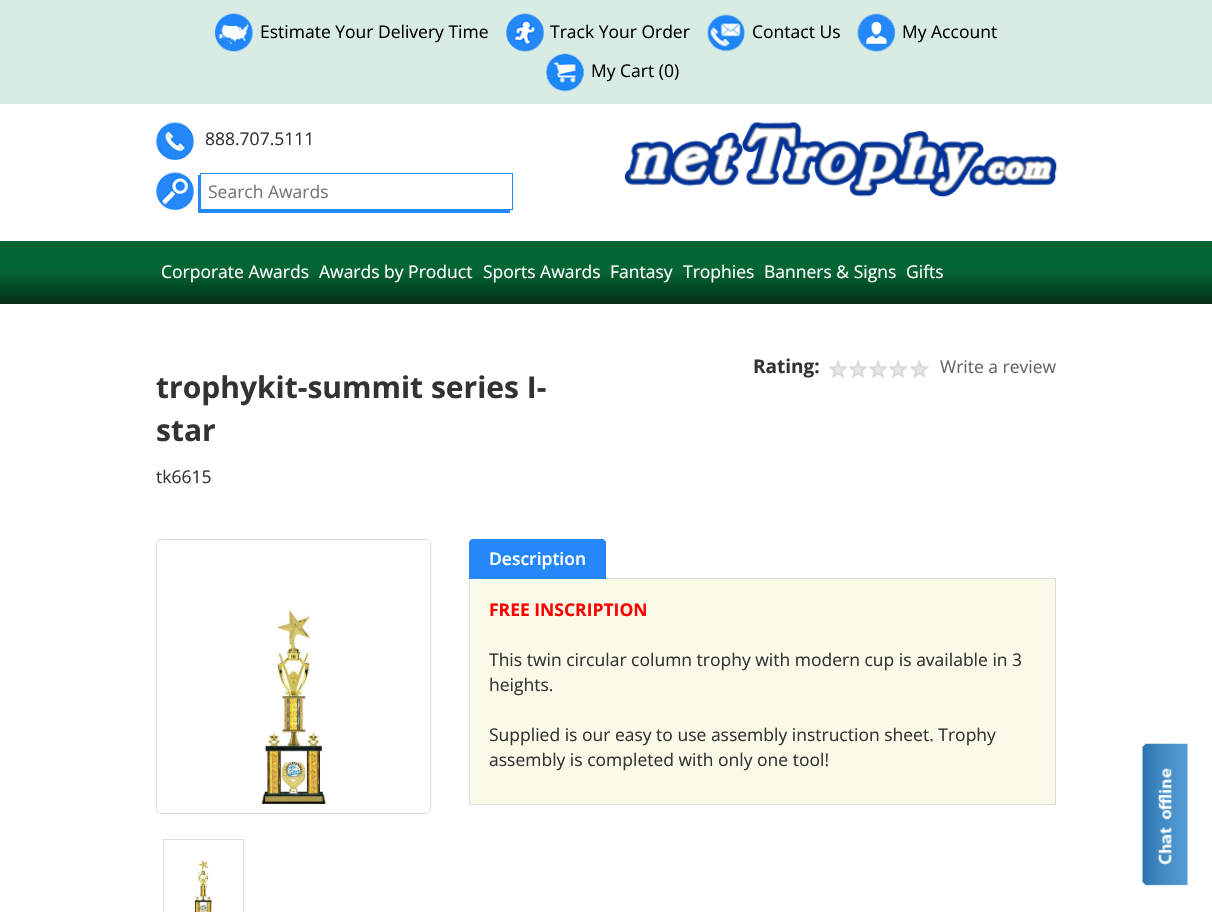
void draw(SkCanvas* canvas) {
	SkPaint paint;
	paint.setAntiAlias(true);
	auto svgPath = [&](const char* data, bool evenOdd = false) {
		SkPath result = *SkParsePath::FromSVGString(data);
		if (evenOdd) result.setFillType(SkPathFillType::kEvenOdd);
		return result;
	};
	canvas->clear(0xffffffff);
	paint.setColor(0xffd8ece3);
	canvas->drawRect(SkRect::MakeXYWH(0, 0, 1212, 104), paint);
	canvas->drawImageRect(SkImages::DeferredFromEncodedData(SkData::MakeFromFileName("img1.png")), SkRect::MakeXYWH(215, 13, 38, 39), SkSamplingOptions());
	SkFont f1(fontMgr->matchFamilyStyle("Open Sans", SkFontStyle::Normal()), 17.5);
	f1.setSubpixel(true);
	paint.setColor(0xff000000);
	canvas->drawString("Estimate Your Delivery Time", 260, 38, f1, paint);
	canvas->drawImageRect(SkImages::DeferredFromEncodedData(SkData::MakeFromFileName("img2.png")), SkRect::MakeXYWH(506, 13, 38, 39), SkSamplingOptions());
	canvas->drawString("Track Your Order", 550, 38, f1, paint);
	canvas->drawImageRect(SkImages::DeferredFromEncodedData(SkData::MakeFromFileName("img3.png")), SkRect::MakeXYWH(707, 14, 38, 38), SkSamplingOptions());
	canvas->drawString("Contact Us", 752, 38, f1, paint);
	canvas->drawImageRect(SkImages::DeferredFromEncodedData(SkData::MakeFromFileName("img4.png")), SkRect::MakeXYWH(857, 13, 38, 39), SkSamplingOptions());
	canvas->drawString("My Account", 902, 38, f1, paint);
	canvas->drawImageRect(SkImages::DeferredFromEncodedData(SkData::MakeFromFileName("img5.png")), SkRect::MakeXYWH(546, 53, 38, 39), SkSamplingOptions());
	canvas->drawString("My Cart (0)", 591, 77, f1, paint);
	canvas->drawImageRect(SkImages::DeferredFromEncodedData(SkData::MakeFromFileName("img6.png")), SkRect::MakeXYWH(156, 122, 38, 38), SkSamplingOptions());
	paint.setColor(0xff333333);
	canvas->drawString("888.707.5111", 205, 145, f1, paint);
	canvas->drawImageRect(SkImages::DeferredFromEncodedData(SkData::MakeFromFileName("img7.png")), SkRect::MakeXYWH(156, 172, 38, 38), SkSamplingOptions());
	paint.setColor(0xff2488f9);
	canvas->drawPath(svgPath("M198 175V213H510V210H200V175Z"), paint);
	paint.setStroke(true);
	paint.setStrokeWidth(1);
	canvas->drawRect(SkRect::MakeXYWH(200.5, 173.5, 312, 36), paint);
	paint.setStroke(false);
	paint.setColor(0xff757575);
	canvas->drawString("Search Awards", 208, 198, f1, paint);
	canvas->drawImageRect(SkImages::DeferredFromEncodedData(SkData::MakeFromFileName("img8.png")), SkRect::MakeXYWH(625, 122, 432, 75), SkSamplingOptions());
	canvas->drawImageRect(SkImages::DeferredFromEncodedData(SkData::MakeFromFileName("img9.png")), SkRect::MakeXYWH(1142, 743, 46, 143), SkSamplingOptions());
	{
		const SkColor colors[] = {0xff036534, 0xff026634, 0xff076334, 0xff005327, 0xff005128, 0xff004c25, 0xff004624, 0xff054022, 0xff023a1d, 0xff08341b, 0xff083018};
		const float stops[] = {0, 0.39, 0.5, 0.65, 0.67, 0.7, 0.78, 0.85, 0.87, 0.93, 1};
		const SkPoint ends[] = {{606, 241}, {606, 304}};
		paint.setShader(SkGradientShader::MakeLinear(ends, colors, stops, 11, SkTileMode::kClamp));
		paint.setAlpha(255);
	}
	canvas->drawRect(SkRect::MakeXYWH(0, 241, 1212, 63), paint);
	paint.setShader(nullptr);
	paint.setColor(0xffffffff);
	canvas->drawString("Corporate Awards", 161, 278, f1, paint);
	canvas->drawString("Awards by Product", 319, 278, f1, paint);
	canvas->drawString("Sports Awards", 483, 278, f1, paint);
	canvas->drawString("Fantasy", 610, 278, f1, paint);
	canvas->drawString("Trophies", 683, 278, f1, paint);
	canvas->drawString("Banners & Signs", 764, 278, f1, paint);
	canvas->drawString("Gifts", 906, 278, f1, paint);
	SkFont f2(fontMgr->matchFamilyStyle("Open Sans", SkFontStyle::Bold()), 19);
	f2.setSubpixel(true);
	paint.setColor(0xff333333);
	canvas->drawString("Rating:", 753, 373, f2, paint);
	canvas->drawImageRect(SkImages::DeferredFromEncodedData(SkData::MakeFromFileName("img10.png")), SkRect::MakeXYWH(828, 360, 101, 18), SkSamplingOptions());
	paint.setColor(0xff666666);
	canvas->drawString("Write a review", 940, 373, f1, paint);
	SkFont f3(fontMgr->matchFamilyStyle("Open Sans", SkFontStyle::Bold()), 30);
	f3.setSubpixel(true);
	paint.setColor(0xff333333);
	canvas->drawString("trophykit-summit series I-", 156, 398, f3, paint);
	canvas->drawString("star", 156, 441, f3, paint);
	canvas->drawString("tk6615", 156, 483, f1, paint);
	paint.setStroke(true);
	paint.setColor(0xffdddddd);
	canvas->drawRoundRect(SkRect::MakeXYWH(156.5, 539.5, 274, 274), 4.5, 4.5, paint);
	canvas->drawImageRect(SkImages::DeferredFromEncodedData(SkData::MakeFromFileName("img11.png")), SkRect::MakeXYWH(261, 608, 66, 196), SkSamplingOptions());
	canvas->drawRect(SkRect::MakeXYWH(163.5, 839.5, 80, 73), paint);
	canvas->drawImageRect(SkImages::DeferredFromEncodedData(SkData::MakeFromFileName("img12.png")), SkRect::MakeXYWH(163, 840, 50, 72), SkSamplingOptions());
	paint.setStroke(false);
	canvas->drawRect(SkRect::MakeXYWH(606, 578, 450, 1), paint);
	paint.setColor(0xff2487fa);
	canvas->drawPath(svgPath("M474 539H601C604 539 606 541 606 544V579H469V544C469 541 471 539 474 539Z"), paint);
	canvas->drawPath(svgPath("M474 539C472 539 471 540 470 540L471 541L474 540H601L604 541L605 540C604 540 602 539 601 539Z"), paint);
	canvas->drawPath(svgPath("M606 578.5V544C606 542.5 605.5 541 604.5 540.5L604 541C604.5 542 605 543 605 544V577.5Z"), paint);
	canvas->drawPath(svgPath("M470.5 540.5C469.5 541 469 542.5 469 544V578.5L470 577.5V544C470 543 470.5 542 471 541Z"), paint);
	SkFont f4(fontMgr->matchFamilyStyle("Open Sans", SkFontStyle(600, SkFontStyle::kNormal_Width, SkFontStyle::kUpright_Slant)), 17.5);
	f4.setSubpixel(true);
	paint.setColor(0xffffffff);
	canvas->drawString("Description", 489, 565, f4, paint);
	paint.setColor(0xfffafae8);
	canvas->drawRect(SkRect::MakeXYWH(470, 579, 585, 225), paint);
	paint.setColor(0xffdddddd);
	canvas->drawRect(SkRect::MakeXYWH(1055, 579, 1, 226), paint);
	canvas->drawRect(SkRect::MakeXYWH(469, 804, 587, 1), paint);
	canvas->drawRect(SkRect::MakeXYWH(469, 579, 1, 226), paint);
	SkFont f5(fontMgr->matchFamilyStyle("Open Sans", SkFontStyle::Bold()), 17.5);
	f5.setSubpixel(true);
	paint.setColor(0xffff0000);
	canvas->drawString("FREE INSCRIPTION", 489, 616, f5, paint);
	paint.setColor(0xff333333);
	canvas->drawString("This twin circular column trophy with modern cup is available in 3", 489, 666, f1, paint);
	canvas->drawString("heights.", 489, 691, f1, paint);
	canvas->drawString("Supplied is our easy to use assembly instruction sheet. Trophy", 489, 741, f1, paint);
	canvas->drawString("assembly is completed with only one tool!", 489, 766, f1, paint);
}
